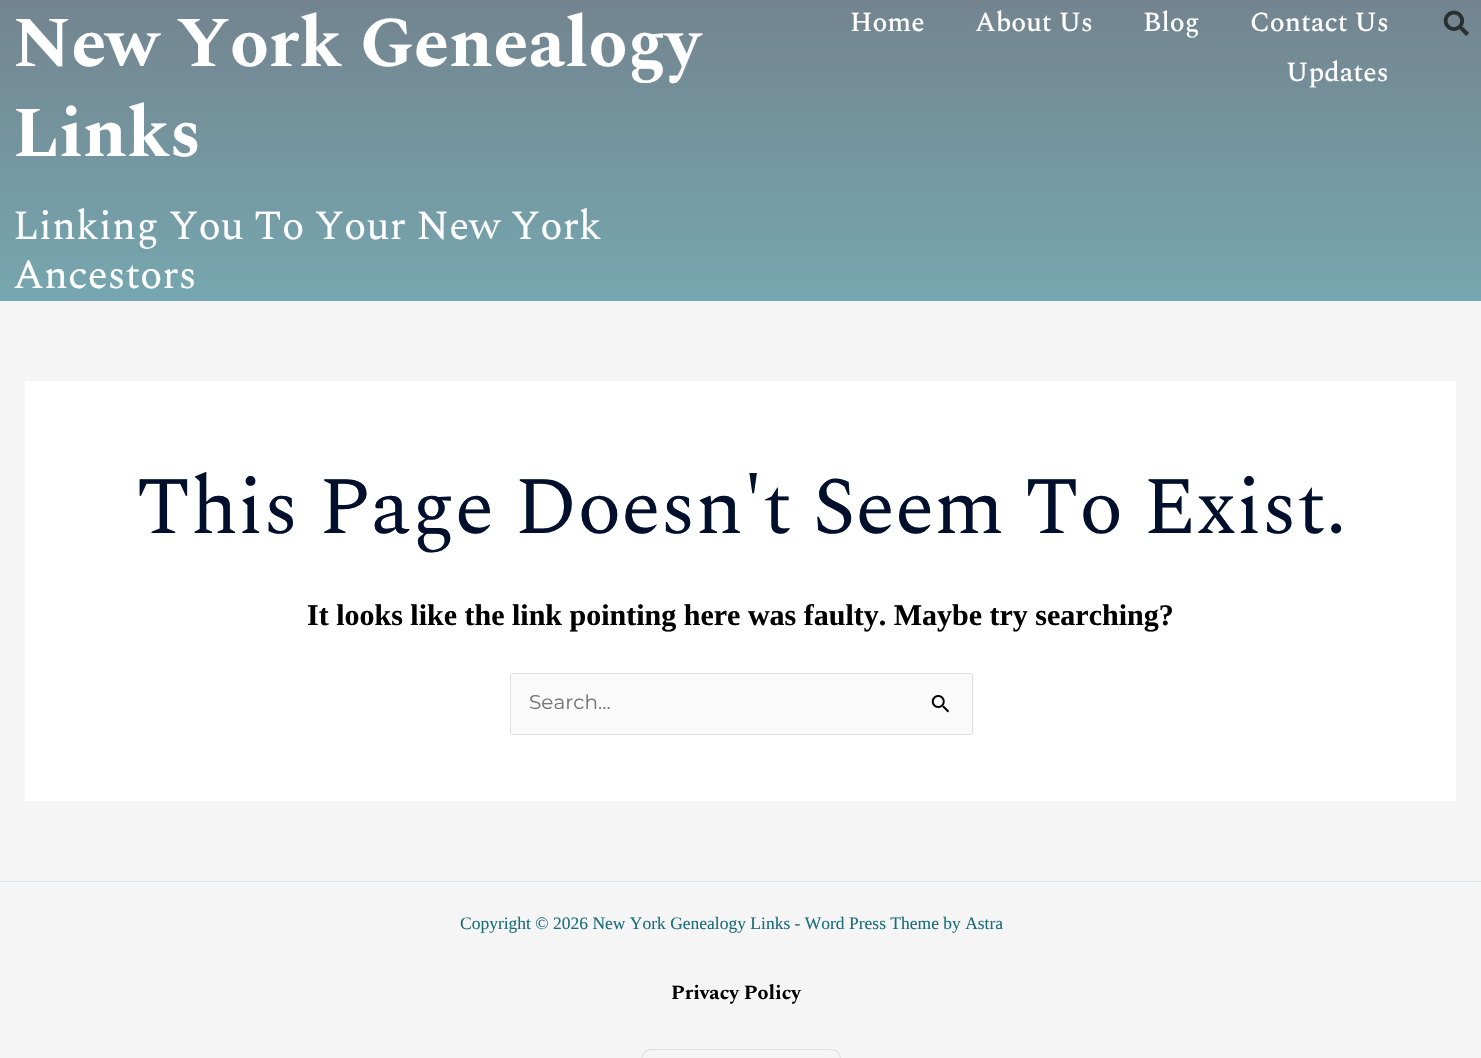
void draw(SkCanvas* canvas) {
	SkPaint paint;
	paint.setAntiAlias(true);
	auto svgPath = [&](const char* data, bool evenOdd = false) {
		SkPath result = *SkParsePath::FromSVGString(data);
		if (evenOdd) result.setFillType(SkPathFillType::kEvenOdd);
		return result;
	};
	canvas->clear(0xfff5f5f5);
	{
		const SkColor colors[] = {0xff73848f, 0xff76a7b0};
		const float stops[] = {0, 1};
		const SkPoint ends[] = {{741, -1.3}, {741, 301}};
		paint.setShader(SkGradientShader::MakeLinear(ends, colors, stops, 2, SkTileMode::kClamp));
		paint.setAlpha(255);
	}
	canvas->drawRect(SkRect::MakeXYWH(0, 0, 1481, 301), paint);
	SkFont f1(fontMgr->matchFamilyStyle("Spectral", SkFontStyle::Bold()), 71.25);
	f1.setSubpixel(true);
	paint.setShader(nullptr);
	paint.setColor(0xffffffff);
	canvas->drawString("New York Genealogy", 13, 66, f1, paint);
	canvas->drawString("Links", 13, 156, f1, paint);
	SkFont f2(fontMgr->matchFamilyStyle("Spectral", SkFontStyle::Normal()), 41.25);
	f2.setSubpixel(true);
	canvas->drawString("Linking You To Your New York", 13, 239, f2, paint);
	canvas->drawString("Ancestors", 13, 288, f2, paint);
	SkFont f3(fontMgr->matchFamilyStyle("Spectral", SkFontStyle(500, SkFontStyle::kNormal_Width, SkFontStyle::kUpright_Slant)), 27.5);
	f3.setSubpixel(true);
	canvas->drawString("Home", 850, 31, f3, paint);
	canvas->drawString("About Us", 975, 31, f3, paint);
	canvas->drawString("Blog", 1143, 31, f3, paint);
	canvas->drawString("Contact Us", 1250, 31, f3, paint);
	canvas->drawString("Updates", 1286, 81, f3, paint);
	canvas->drawImageRect(SkImages::DeferredFromEncodedData(SkData::MakeFromFileName("img1.png")), SkRect::MakeXYWH(1443, 10, 26, 26), SkSamplingOptions());
	canvas->drawRect(SkRect::MakeXYWH(25, 381, 1431, 420), paint);
	SkFont f4(fontMgr->matchFamilyStyle("Spectral", SkFontStyle::Normal()), 81.25);
	f4.setSubpixel(true);
	paint.setColor(0xff000f2b);
	canvas->drawString("This Page Doesn't Seem To Exist.", 136, 533, f4, paint);
	SkFont f5(fontMgr->matchFamilyStyle("Tinos", SkFontStyle::Bold()), 30);
	f5.setSubpixel(true);
	paint.setColor(0xff000000);
	canvas->drawString("It looks like the link pointing here was faulty. Maybe try searching?", 307, 625, f5, paint);
	paint.setColor(0xfffafafa);
	canvas->drawRoundRect(SkRect::MakeXYWH(510.5, 673.5, 462, 61), 2, 2, paint);
	paint.setStroke(true);
	paint.setStrokeWidth(1);
	paint.setColor(0xffdddddd);
	canvas->drawRoundRect(SkRect::MakeXYWH(510.5, 673.5, 462, 61), 2, 2, paint);
	SkFont f6(fontMgr->matchFamilyStyle("Montserrat", SkFontStyle::Normal()), 20);
	f6.setSubpixel(true);
	paint.setStroke(false);
	paint.setColor(0xff757575);
	canvas->drawString("Search...", 529, 709, f6, paint);
	canvas->drawImageRect(SkImages::DeferredFromEncodedData(SkData::MakeFromFileName("img2.png")), SkRect::MakeXYWH(931, 695, 19, 18), SkSamplingOptions());
	paint.setColor(0xffdbe8eb);
	canvas->drawRect(SkRect::MakeXYWH(0, 881, 1481, 1), paint);
	SkFont f7(fontMgr->matchFamilyStyle("Tinos", SkFontStyle::Normal()), 17.5);
	f7.setSubpixel(true);
	paint.setColor(0xff1a6c7a);
	canvas->drawString("Copyright © 2026 New York Genealogy Links - Word Press Theme by Astra", 460, 929, f7, paint);
	SkFont f8(fontMgr->matchFamilyStyle("Spectral", SkFontStyle::Bold()), 20);
	f8.setSubpixel(true);
	paint.setColor(0xff000000);
	canvas->drawString("Privacy Policy", 671, 999, f8, paint);
	canvas->save();
	canvas->clipRect(SkRect::MakeXYWH(641, 1049, 200, 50));
	paint.setStroke(true);
	paint.setStrokeWidth(1.2);
	paint.setColor(0xffe0e0e0);
	canvas->drawPath(svgPath("M651 1049.5H831C836.5 1049.5 840.5 1053.5 840.5 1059V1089C840.5 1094 836.5 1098 831 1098H651C646 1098 642 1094 642 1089V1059C642 1053.5 646 1049.5 651 1049.5Z"), paint);
	canvas->restore();
}
